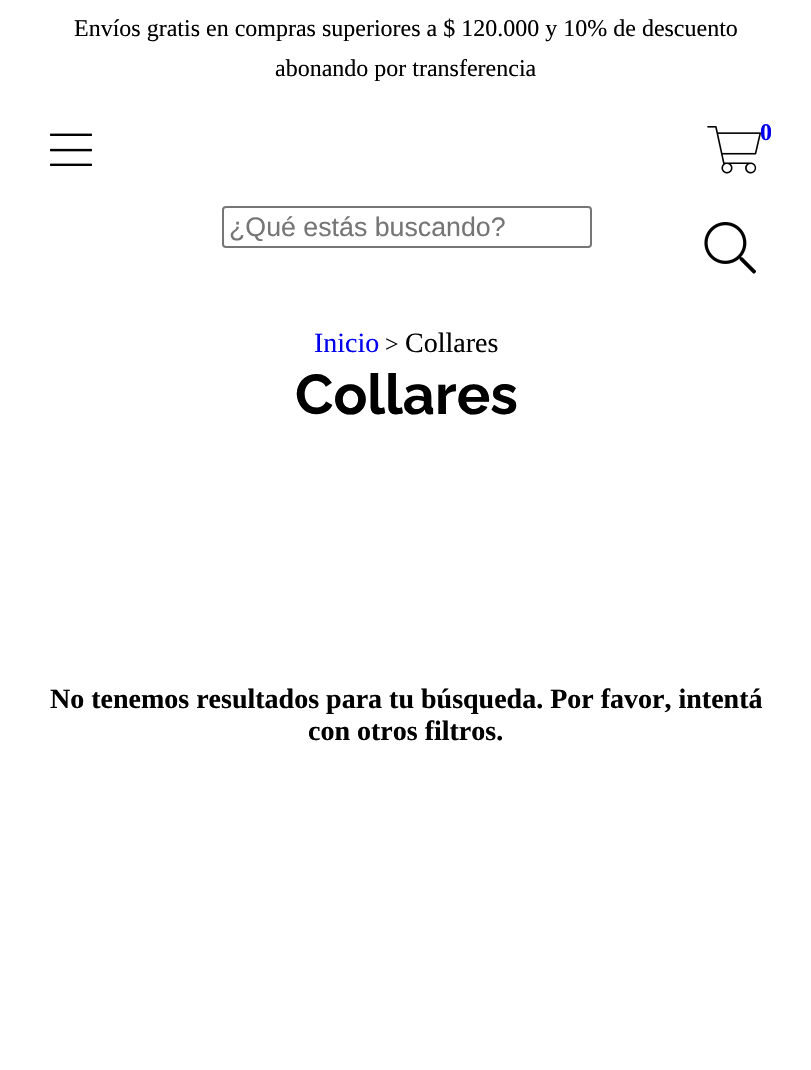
void draw(SkCanvas* canvas) {
	SkPaint paint;
	paint.setAntiAlias(true);
	canvas->clear(0xffffffff);
	SkFont f1(fontMgr->matchFamilyStyle("Liberation Serif", SkFontStyle::Normal()), 24);
	f1.setSubpixel(true);
	paint.setColor(0xff000000);
	canvas->drawString("Envíos gratis en compras superiores a $ 120.000 y 10% de descuento", 74, 36, f1, paint);
	canvas->drawString("abonando por transferencia", 275, 76, f1, paint);
	canvas->drawImageRect(SkImages::DeferredFromEncodedData(SkData::MakeFromFileName("img1.png")), SkRect::MakeXYWH(50, 133, 42, 33), SkSamplingOptions());
	canvas->drawImageRect(SkImages::DeferredFromEncodedData(SkData::MakeFromFileName("img2.png")), SkRect::MakeXYWH(707, 126, 54, 48), SkSamplingOptions());
	SkFont f2(fontMgr->matchFamilyStyle("Liberation Serif", SkFontStyle::Bold()), 24);
	f2.setSubpixel(true);
	paint.setColor(0xff0000ee);
	canvas->drawString("0", 760, 140, f2, paint);
	paint.setStroke(true);
	paint.setStrokeWidth(2);
	paint.setColor(0xff767676);
	canvas->drawRoundRect(SkRect::MakeXYWH(223, 207, 368, 40), 3, 3, paint);
	SkFont f3(fontMgr->matchFamilyStyle("Liberation Sans", SkFontStyle::Normal()), 26.75);
	f3.setSubpixel(true);
	paint.setStroke(false);
	paint.setColor(0xff757575);
	canvas->drawString("¿Qué estás buscando?", 229, 236, f3, paint);
	canvas->drawImageRect(SkImages::DeferredFromEncodedData(SkData::MakeFromFileName("img3.png")), SkRect::MakeXYWH(704, 222, 52, 52), SkSamplingOptions());
	SkFont f4(fontMgr->matchFamilyStyle("Liberation Serif", SkFontStyle::Normal()), 28);
	f4.setSubpixel(true);
	paint.setColor(0xff0000ee);
	canvas->drawString("Inicio", 314, 352, f4, paint);
	paint.setColor(0xff000000);
	canvas->drawString(">", 385, 352, f1, paint);
	canvas->drawString("Collares", 405, 352, f4, paint);
	SkFont f5(fontMgr->matchFamilyStyle("Raleway", SkFontStyle::Bold()), 56);
	f5.setSubpixel(true);
	canvas->drawString("Collares", 295, 414, f5, paint);
	SkFont f6(fontMgr->matchFamilyStyle("Liberation Serif", SkFontStyle::Bold()), 28);
	f6.setSubpixel(true);
	canvas->drawString("No tenemos resultados para tu búsqueda. Por favor, intentá", 50, 708, f6, paint);
	canvas->drawString("con otros filtros.", 308, 740, f6, paint);
}
